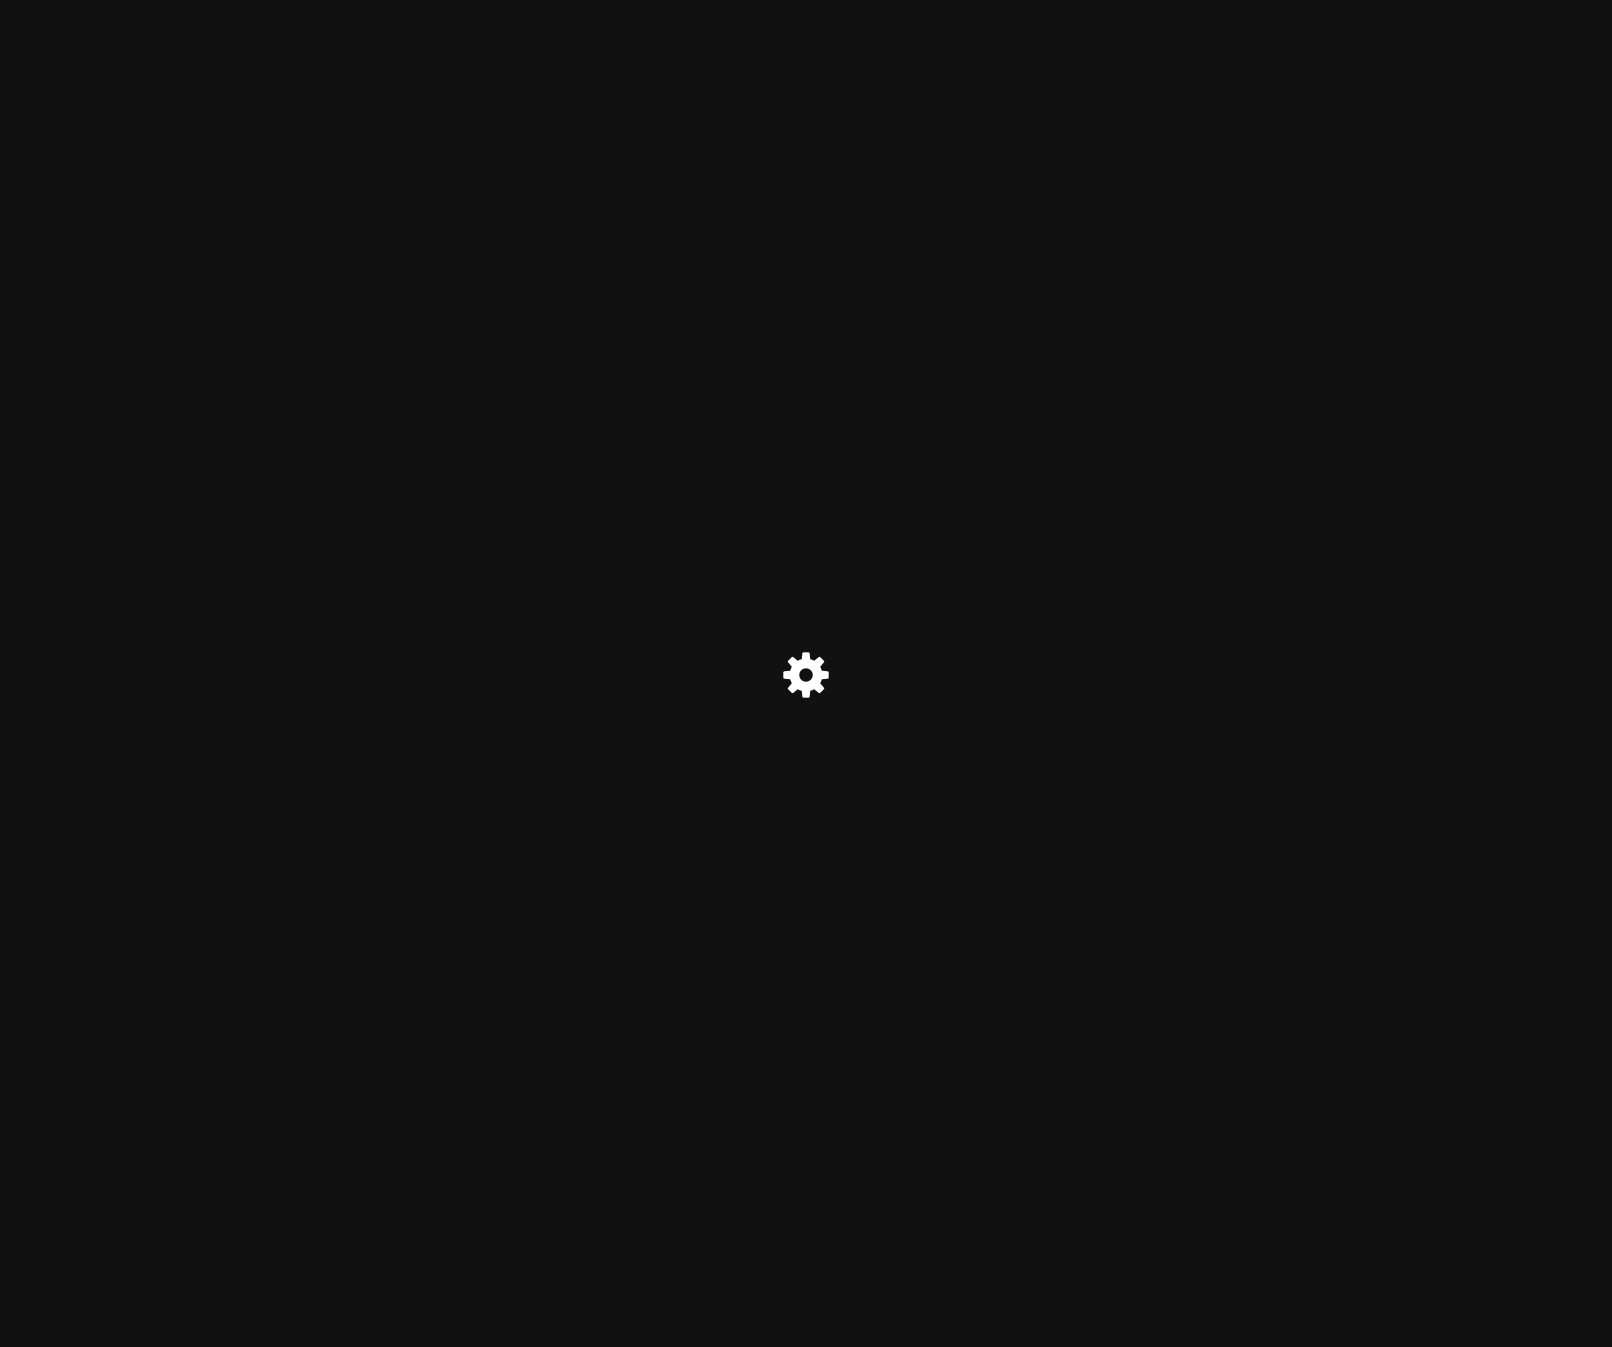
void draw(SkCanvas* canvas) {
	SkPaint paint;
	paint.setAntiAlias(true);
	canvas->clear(0xff111111);
	canvas->drawImageRect(SkImages::DeferredFromEncodedData(SkData::MakeFromFileName("img1.png")), SkRect::MakeXYWH(783, 652, 46, 46), SkSamplingOptions());
}
